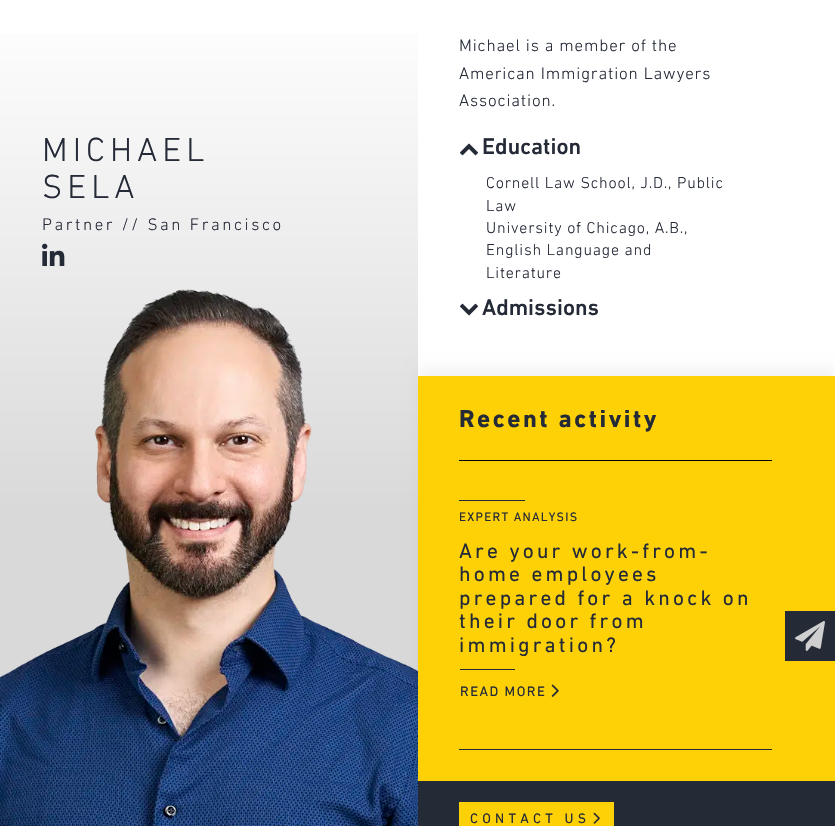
void draw(SkCanvas* canvas) {
	SkPaint paint;
	paint.setAntiAlias(true);
	auto spacedText = [&](const char* s, float x, float y, const SkFont& font, const SkPaint& ink, float letter, float word) {
		std::vector<SkGlyphID> glyphs(font.countText(s, strlen(s), SkTextEncoding::kUTF8));
		std::vector<float> xs(glyphs.size());
		font.textToGlyphs(s, strlen(s), SkTextEncoding::kUTF8, glyphs);
		font.getXPos(glyphs, xs, x);
		float extra = 0;
		for (size_t i = 0; i < glyphs.size(); i++) {
			xs[i] += extra;
			extra += letter + word * (glyphs[i] == font.unicharToGlyph(' '));
		}
		canvas->drawTextBlob(SkTextBlob::MakeFromPosHGlyphs(glyphs, xs, y, font), 0, 0, ink);
	};
	canvas->clear(0xffffffff);
	{
		const SkColor colors[] = {0xffffffff, 0xffd9d9d9};
		const float stops[] = {0, 0.62};
		const SkPoint ends[] = {{209, 0}, {209, 826}};
		paint.setShader(SkGradientShader::MakeLinear(ends, colors, stops, 2, SkTileMode::kClamp));
		paint.setAlpha(255);
	}
	canvas->drawRect(SkRect::MakeXYWH(0, 34, 418, 644), paint);
	SkFont f1(fontMgr->matchFamilyStyle("DIN Next", SkFontStyle(300, SkFontStyle::kNormal_Width, SkFontStyle::kUpright_Slant)), 34);
	f1.setSubpixel(true);
	paint.setShader(nullptr);
	paint.setColor(0xff252a37);
	spacedText("MICHAEL", 42, 161, f1, paint, 5, 0);
	spacedText("SELA", 42, 198, f1, paint, 5, 0);
	SkFont f2(fontMgr->matchFamilyStyle("DIN Next", SkFontStyle(300, SkFontStyle::kNormal_Width, SkFontStyle::kUpright_Slant)), 17);
	f2.setSubpixel(true);
	spacedText("Partner // San Francisco", 42, 230, f2, paint, 2.55, 0);
	canvas->drawImageRect(SkImages::DeferredFromEncodedData(SkData::MakeFromFileName("img1.png")), SkRect::MakeXYWH(42, 243, 23, 23), SkSamplingOptions());
	canvas->drawImageRect(SkImages::DeferredFromEncodedData(SkData::MakeFromFileName("img2.png")), SkRect::MakeXYWH(0, 289, 418, 537), SkSamplingOptions());
	spacedText("Michael is a member of the", 459, 51, f2, paint, 0.85, 0);
	spacedText("American Immigration Lawyers", 459, 79, f2, paint, 0.85, 0);
	spacedText("Association.", 459, 106, f2, paint, 0.85, 0);
	canvas->drawImageRect(SkImages::DeferredFromEncodedData(SkData::MakeFromFileName("img3.png")), SkRect::MakeXYWH(460, 143, 18, 13), SkSamplingOptions());
	SkFont f3(fontMgr->matchFamilyStyle("DIN Next", SkFontStyle(500, SkFontStyle::kNormal_Width, SkFontStyle::kUpright_Slant)), 23);
	f3.setSubpixel(true);
	canvas->drawString("Education", 482, 154, f3, paint);
	SkFont f4(fontMgr->matchFamilyStyle("DIN Next", SkFontStyle(300, SkFontStyle::kNormal_Width, SkFontStyle::kUpright_Slant)), 16);
	f4.setSubpixel(true);
	spacedText("Cornell Law School, J.D., Public", 486, 188, f4, paint, 0.8, 0);
	spacedText("Law", 486, 211, f4, paint, 0.8, 0);
	spacedText("University of Chicago, A.B.,", 486, 233, f4, paint, 0.8, 0);
	spacedText("English Language and", 486, 255, f4, paint, 0.8, 0);
	spacedText("Literature", 486, 278, f4, paint, 0.8, 0);
	canvas->drawImageRect(SkImages::DeferredFromEncodedData(SkData::MakeFromFileName("img4.png")), SkRect::MakeXYWH(460, 303, 18, 13), SkSamplingOptions());
	canvas->drawString("Admissions", 482, 315, f3, paint);
	paint.setColor(0x0d000000);
	paint.setMaskFilter(SkMaskFilter::MakeBlur(kNormal_SkBlurStyle, 6));
	canvas->drawRect(SkRect::MakeXYWH(418, 368, 417, 405), paint);
	paint.setMaskFilter(nullptr);
	paint.setColor(0xfffdd106);
	canvas->drawRect(SkRect::MakeXYWH(418, 376, 417, 405), paint);
	paint.setColor(0xff000000);
	canvas->drawRect(SkRect::MakeXYWH(459, 460, 313, 1), paint);
	SkFont f5(fontMgr->matchFamilyStyle("DIN Next", SkFontStyle::Bold()), 25);
	f5.setSubpixel(true);
	paint.setColor(0xff252a37);
	spacedText("Recent activity", 459, 427, f5, paint, 2.5, 0);
	canvas->drawRect(SkRect::MakeXYWH(459, 749, 313, 1), paint);
	canvas->drawRect(SkRect::MakeXYWH(459, 500, 66, 1), paint);
	SkFont f6(fontMgr->matchFamilyStyle("DIN Next", SkFontStyle::Normal()), 12.5);
	f6.setSubpixel(true);
	spacedText("EXPERT ANALYSIS", 459, 521, f6, paint, 1.25, 0);
	SkFont f7(fontMgr->matchFamilyStyle("DIN Next", SkFontStyle::Normal()), 21.25);
	f7.setSubpixel(true);
	spacedText("Are your work-from-", 459, 558, f7, paint, 3.2, 0);
	spacedText("home employees", 459, 581, f7, paint, 3.2, 0);
	spacedText("prepared for a knock on", 459, 605, f7, paint, 3.2, 0);
	spacedText("their door from", 459, 628, f7, paint, 3.2, 0);
	spacedText("immigration?", 459, 652, f7, paint, 3.2, 0);
	canvas->drawRect(SkRect::MakeXYWH(460, 669, 55, 1), paint);
	SkFont f8(fontMgr->matchFamilyStyle("DIN Next", SkFontStyle::Normal()), 14);
	f8.setSubpixel(true);
	spacedText("READ MORE", 460, 696, f8, paint, 1.5, 0);
	canvas->drawImageRect(SkImages::DeferredFromEncodedData(SkData::MakeFromFileName("img5.png")), SkRect::MakeXYWH(551, 684, 8, 13), SkSamplingOptions());
	canvas->drawRect(SkRect::MakeXYWH(418, 781, 417, 45), paint);
	paint.setColor(0xfffdd106);
	canvas->drawRect(SkRect::MakeXYWH(459, 802, 155, 24), paint);
	paint.setColor(0xff252a37);
	spacedText("CONTACT US", 470, 823, f8, paint, 4.25, 0);
	canvas->drawImageRect(SkImages::DeferredFromEncodedData(SkData::MakeFromFileName("img6.png")), SkRect::MakeXYWH(593, 812, 7, 12), SkSamplingOptions());
	canvas->drawRect(SkRect::MakeXYWH(785, 611, 50, 50), paint);
	canvas->drawImageRect(SkImages::DeferredFromEncodedData(SkData::MakeFromFileName("img7.png")), SkRect::MakeXYWH(795, 621, 30, 30), SkSamplingOptions());
}
